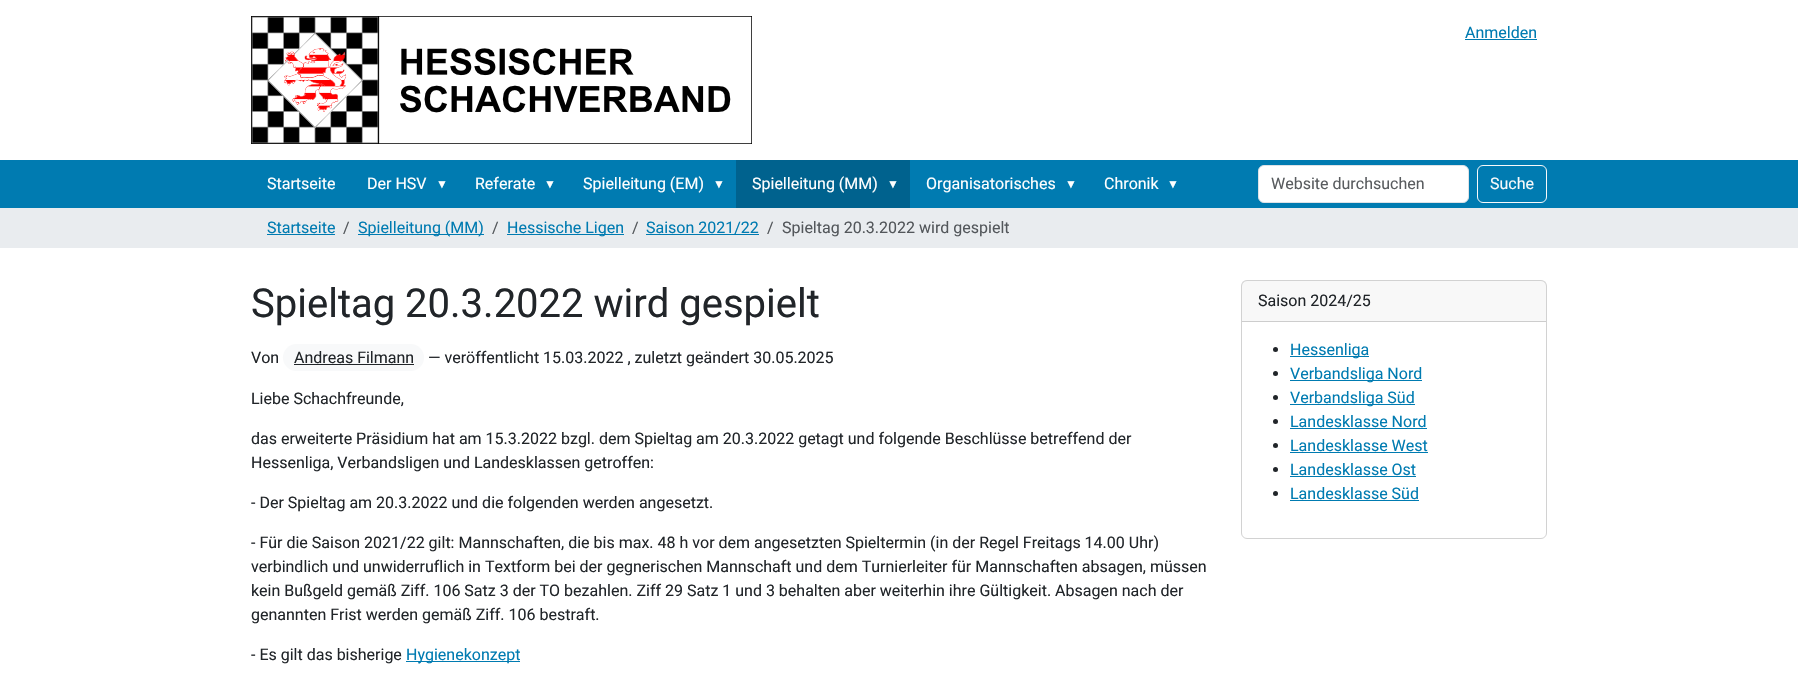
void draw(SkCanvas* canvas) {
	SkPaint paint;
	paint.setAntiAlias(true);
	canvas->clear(0xffffffff);
	canvas->drawImageRect(SkImages::DeferredFromEncodedData(SkData::MakeFromFileName("img1.png")), SkRect::MakeXYWH(251, 16, 501, 128), SkSamplingOptions());
	SkFont f1(fontMgr->matchFamilyStyle("Roboto", SkFontStyle::Normal()), 16);
	f1.setSubpixel(true);
	paint.setColor(0xff007bb1);
	canvas->drawString("Anmelden", 1465, 38, f1, paint);
	canvas->drawRect(SkRect::MakeXYWH(1465, 39, 72, 1), paint);
	canvas->drawRect(SkRect::MakeXYWH(0, 160, 1798, 48), paint);
	paint.setColor(0xffffffff);
	canvas->drawString("Startseite", 267, 189, f1, paint);
	canvas->drawString("Der HSV", 367, 189, f1, paint);
	SkFont f2(fontMgr->matchFamilyStyle("Liberation Sans", SkFontStyle::Normal()), 12);
	f2.setSubpixel(true);
	canvas->drawString("▼", 436, 188, f2, paint);
	canvas->drawString("Referate", 475, 189, f1, paint);
	canvas->drawString("▼", 544, 188, f2, paint);
	canvas->drawString("Spielleitung (EM)", 583, 189, f1, paint);
	canvas->drawString("▼", 713, 188, f2, paint);
	paint.setColor(0xff00628e);
	canvas->drawRect(SkRect::MakeXYWH(736, 160, 174, 48), paint);
	paint.setColor(0xffffffff);
	canvas->drawString("Spielleitung (MM)", 752, 189, f1, paint);
	canvas->drawString("▼", 887, 188, f2, paint);
	canvas->drawString("Organisatorisches", 926, 189, f1, paint);
	canvas->drawString("▼", 1065, 188, f2, paint);
	canvas->drawString("Chronik", 1104, 189, f1, paint);
	canvas->drawString("▼", 1167, 188, f2, paint);
	canvas->drawRoundRect(SkRect::MakeXYWH(1258.5, 165.5, 210, 37), 5.5, 5.5, paint);
	paint.setStroke(true);
	paint.setStrokeWidth(1);
	paint.setColor(0xffdee2e6);
	canvas->drawRoundRect(SkRect::MakeXYWH(1258.5, 165.5, 210, 37), 5.5, 5.5, paint);
	paint.setStroke(false);
	paint.setColor(0xff595c5f);
	canvas->drawString("Website durchsuchen", 1271, 189, f1, paint);
	paint.setStroke(true);
	paint.setColor(0xfff8f9fa);
	canvas->drawRoundRect(SkRect::MakeXYWH(1477.5, 165.5, 69, 37), 5.5, 5.5, paint);
	paint.setStroke(false);
	canvas->drawString("Suche", 1490, 189, f1, paint);
	paint.setColor(0xffe9ecef);
	canvas->drawRect(SkRect::MakeXYWH(0, 208, 1798, 40), paint);
	paint.setColor(0xff007bb1);
	canvas->drawString("Startseite", 267, 233, f1, paint);
	canvas->drawRect(SkRect::MakeXYWH(267, 234, 68, 1), paint);
	paint.setColor(0xff53575b);
	canvas->drawString("/", 343, 233, f1, paint);
	paint.setColor(0xff007bb1);
	canvas->drawRect(SkRect::MakeXYWH(358, 234, 126, 1), paint);
	canvas->drawString("Spielleitung (MM)", 358, 233, f1, paint);
	paint.setColor(0xff53575b);
	canvas->drawString("/", 492, 233, f1, paint);
	paint.setColor(0xff007bb1);
	canvas->drawRect(SkRect::MakeXYWH(507, 234, 117, 1), paint);
	canvas->drawString("Hessische Ligen", 507, 233, f1, paint);
	paint.setColor(0xff53575b);
	canvas->drawString("/", 632, 233, f1, paint);
	paint.setColor(0xff007bb1);
	canvas->drawString("Saison 2021/22", 646, 233, f1, paint);
	canvas->drawRect(SkRect::MakeXYWH(646, 234, 113, 1), paint);
	paint.setColor(0xff53575b);
	canvas->drawString("/", 767, 233, f1, paint);
	canvas->drawString("Spieltag 20.3.2022 wird gespielt", 782, 233, f1, paint);
	SkFont f3(fontMgr->matchFamilyStyle("Roboto", SkFontStyle::Normal()), 40);
	f3.setSubpixel(true);
	paint.setColor(0xff212529);
	canvas->drawString("Spieltag 20.3.2022 wird gespielt", 251, 317, f3, paint);
	canvas->drawString("Von", 251, 363, f1, paint);
	paint.setColor(0xfff8f9fa);
	canvas->drawRoundRect(SkRect::MakeXYWH(283, 344, 141, 27), 13.5, 13.5, paint);
	paint.setColor(0xff212529);
	canvas->drawString("Andreas Filmann", 294, 363, f1, paint);
	canvas->drawRect(SkRect::MakeXYWH(294, 364, 120, 1), paint);
	canvas->drawString("— veröffentlicht 15.03.2022 , zuletzt geändert 30.05.2025", 428, 363, f1, paint);
	canvas->drawString("Liebe Schachfreunde,", 251, 404, f1, paint);
	canvas->drawString("das erweiterte Präsidium hat am 15.3.2022 bzgl. dem Spieltag am 20.3.2022 getagt und folgende Beschlüsse betreffend der", 251, 444, f1, paint);
	canvas->drawString("Hessenliga, Verbandsligen und Landesklassen getroffen:", 251, 468, f1, paint);
	canvas->drawString("- Der Spieltag am 20.3.2022 und die folgenden werden angesetzt.", 251, 508, f1, paint);
	canvas->drawString("- Für die Saison 2021/22 gilt: Mannschaften, die bis max. 48 h vor dem angesetzten Spieltermin (in der Regel Freitags 14.00 Uhr)", 251, 548, f1, paint);
	canvas->drawString("verbindlich und unwiderruflich in Textform bei der gegnerischen Mannschaft und dem Turnierleiter für Mannschaften absagen, müssen", 251, 572, f1, paint);
	canvas->drawString("kein Bußgeld gemäß Ziff. 106 Satz 3 der TO bezahlen. Ziff 29 Satz 1 und 3 behalten aber weiterhin ihre Gültigkeit. Absagen nach der", 251, 596, f1, paint);
	canvas->drawString("genannten Frist werden gemäß Ziff. 106 bestraft.", 251, 620, f1, paint);
	canvas->drawString("- Es gilt das bisherige", 251, 660, f1, paint);
	paint.setColor(0xff007bb1);
	canvas->drawRect(SkRect::MakeXYWH(406, 661, 114, 1), paint);
	canvas->drawString("Hygienekonzept", 406, 660, f1, paint);
	paint.setStroke(true);
	paint.setColor(0xffd2d2d2);
	canvas->drawRoundRect(SkRect::MakeXYWH(1241.5, 280.5, 305, 258), 5.5, 5.5, paint);
	paint.setStroke(false);
	paint.setColor(0x08212529);
	canvas->drawRect(SkRect::MakeXYWH(1242, 281, 304, 40), paint);
	paint.setColor(0xffcdcdcd);
	canvas->drawRect(SkRect::MakeXYWH(1242, 321, 304, 1), paint);
	paint.setColor(0xff212529);
	canvas->drawString("Saison 2024/25", 1258, 306, f1, paint);
	canvas->drawCircle(1275.5, 349.5, 2.5, paint);
	paint.setColor(0xff007bb1);
	canvas->drawRect(SkRect::MakeXYWH(1290, 356, 79, 1), paint);
	canvas->drawString("Hessenliga", 1290, 355, f1, paint);
	paint.setColor(0xff212529);
	canvas->drawCircle(1275.5, 373.5, 2.5, paint);
	paint.setColor(0xff007bb1);
	canvas->drawRect(SkRect::MakeXYWH(1290, 380, 132, 1), paint);
	canvas->drawString("Verbandsliga Nord", 1290, 379, f1, paint);
	paint.setColor(0xff212529);
	canvas->drawCircle(1275.5, 397.5, 2.5, paint);
	paint.setColor(0xff007bb1);
	canvas->drawRect(SkRect::MakeXYWH(1290, 404, 125, 1), paint);
	canvas->drawString("Verbandsliga Süd", 1290, 403, f1, paint);
	paint.setColor(0xff212529);
	canvas->drawCircle(1275.5, 421.5, 2.5, paint);
	paint.setColor(0xff007bb1);
	canvas->drawString("Landesklasse Nord", 1290, 427, f1, paint);
	canvas->drawRect(SkRect::MakeXYWH(1290, 428, 137, 1), paint);
	paint.setColor(0xff212529);
	canvas->drawCircle(1275.5, 445.5, 2.5, paint);
	paint.setColor(0xff007bb1);
	canvas->drawString("Landesklasse West", 1290, 451, f1, paint);
	canvas->drawRect(SkRect::MakeXYWH(1290, 452, 138, 1), paint);
	paint.setColor(0xff212529);
	canvas->drawCircle(1275.5, 469.5, 2.5, paint);
	paint.setColor(0xff007bb1);
	canvas->drawString("Landesklasse Ost", 1290, 475, f1, paint);
	canvas->drawRect(SkRect::MakeXYWH(1290, 476, 126, 1), paint);
	paint.setColor(0xff212529);
	canvas->drawCircle(1275.5, 493.5, 2.5, paint);
	paint.setColor(0xff007bb1);
	canvas->drawString("Landesklasse Süd", 1290, 499, f1, paint);
	canvas->drawRect(SkRect::MakeXYWH(1290, 500, 129, 1), paint);
}
